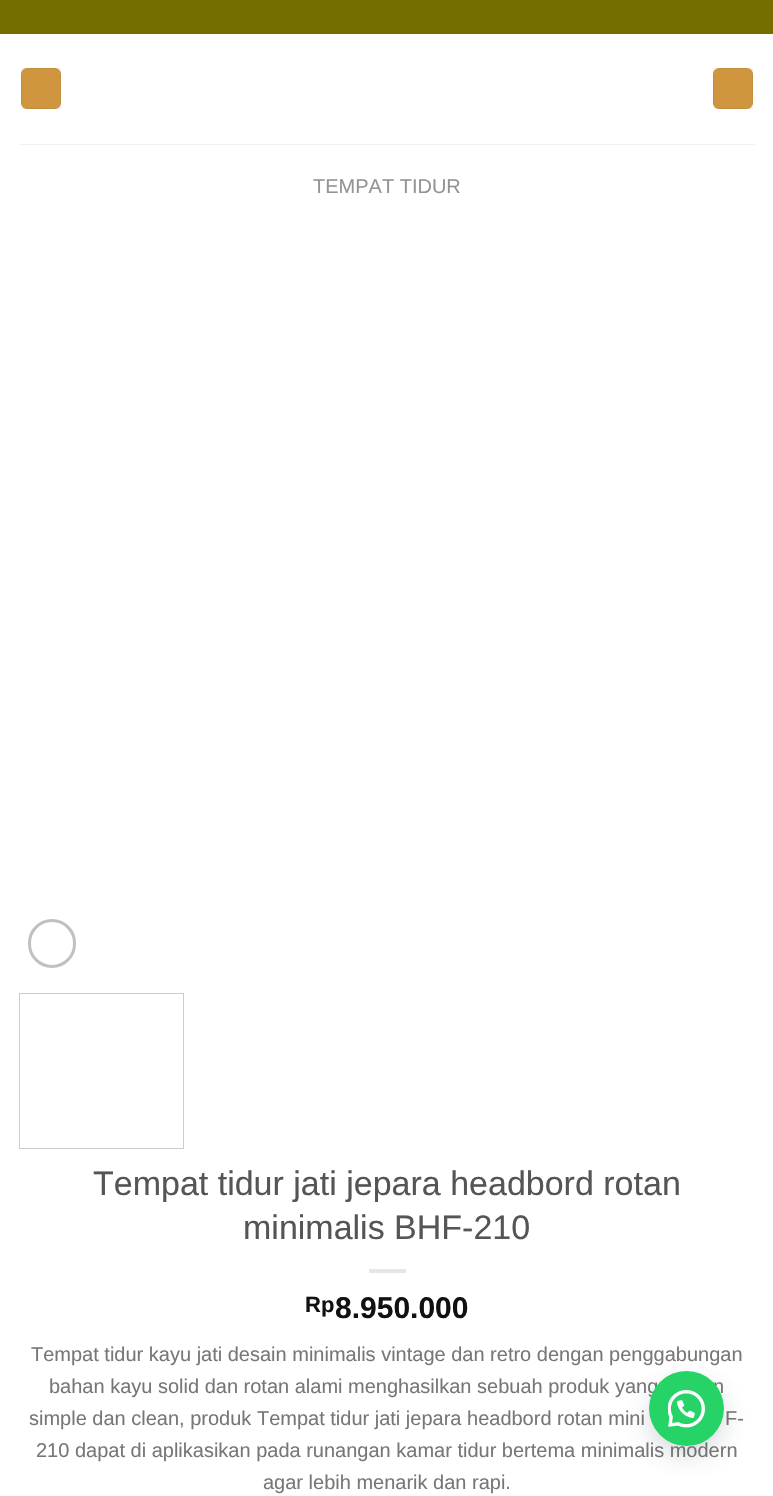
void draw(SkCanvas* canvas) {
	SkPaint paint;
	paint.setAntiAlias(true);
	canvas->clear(0xffffffff);
	paint.setColor(0xff756d00);
	canvas->drawRect(SkRect::MakeXYWH(0, 0, 773, 34), paint);
	paint.setColor(0xffcf953f);
	canvas->drawRoundRect(SkRect::MakeXYWH(21, 68, 40, 41), 6, 6, paint);
	paint.setStroke(true);
	paint.setStrokeWidth(1);
	paint.setColor(0x0d000000);
	canvas->drawRect(SkRect::MakeXYWH(21.5, 68.5, 39, 40), paint);
	paint.setStroke(false);
	paint.setColor(0xffcf953f);
	canvas->drawRoundRect(SkRect::MakeXYWH(713, 68, 40, 41), 6, 6, paint);
	paint.setStroke(true);
	paint.setColor(0x0d000000);
	canvas->drawRect(SkRect::MakeXYWH(713.5, 68.5, 39, 40), paint);
	paint.setStroke(false);
	paint.setColor(0xfff1f1f1);
	canvas->drawRect(SkRect::MakeXYWH(19, 144, 736, 1), paint);
	SkFont f1(fontMgr->matchFamilyStyle("Liberation Sans", SkFontStyle::Normal()), 20);
	f1.setSubpixel(true);
	paint.setColor(0xff949494);
	canvas->drawString("TEMPAT TIDUR", 313, 193, f1, paint);
	paint.setStroke(true);
	paint.setStrokeWidth(3);
	paint.setColor(0xffc0c0c0);
	canvas->drawRoundRect(SkRect::MakeXYWH(29.5, 920.5, 45, 46), 22.5, 22.5, paint);
	paint.setStrokeWidth(1);
	paint.setColor(0xffcccccc);
	canvas->drawRect(SkRect::MakeXYWH(19.5, 993.5, 164, 155), paint);
	SkFont f2(fontMgr->matchFamilyStyle("Liberation Sans", SkFontStyle::Normal()), 34);
	f2.setSubpixel(true);
	paint.setStroke(false);
	paint.setColor(0xff555555);
	canvas->drawString("Tempat tidur jati jepara headbord rotan", 93, 1195, f2, paint);
	canvas->drawString("minimalis BHF-210", 243, 1239, f2, paint);
	paint.setColor(0xffe6e6e6);
	canvas->drawRect(SkRect::MakeXYWH(369, 1269, 37, 4), paint);
	SkFont f3(fontMgr->matchFamilyStyle("Liberation Sans", SkFontStyle::Bold()), 22);
	f3.setSubpixel(true);
	paint.setColor(0xff111111);
	canvas->drawString("Rp", 305, 1312, f3, paint);
	SkFont f4(fontMgr->matchFamilyStyle("Liberation Sans", SkFontStyle::Bold()), 30);
	f4.setSubpixel(true);
	canvas->drawString("8.950.000", 335, 1318, f4, paint);
	paint.setColor(0xff777777);
	canvas->drawString("Tempat tidur kayu jati desain minimalis vintage dan retro dengan penggabungan", 31, 1361, f1, paint);
	canvas->drawString("bahan kayu solid dan rotan alami menghasilkan sebuah produk yang", 49, 1393, f1, paint);
	canvas->drawString("n", 713, 1393, f1, paint);
	canvas->drawString("simple dan clean, produk Tempat tidur jati jepara headbord rotan mini", 29, 1425, f1, paint);
	canvas->drawString("F-", 725, 1425, f1, paint);
	canvas->drawString("210 dapat di aplikasikan pada runangan kamar tidur bertema minimalis modern", 36, 1457, f1, paint);
	canvas->drawString("agar lebih menarik dan rapi.", 263, 1489, f1, paint);
	paint.setColor(0x4d2d3e4f);
	paint.setMaskFilter(SkMaskFilter::MakeBlur(kNormal_SkBlurStyle, 15.5));
	canvas->drawRoundRect(SkRect::MakeXYWH(655, 1388, 63, 62), 31, 31, paint);
	paint.setMaskFilter(nullptr);
	paint.setColor(0xff25d366);
	canvas->drawCircle(686.5, 1408.5, 37.5, paint);
	canvas->drawImageRect(SkImages::DeferredFromEncodedData(SkData::MakeFromFileName("img1.png")), SkRect::MakeXYWH(668, 1390, 37, 38), SkSamplingOptions());
}
